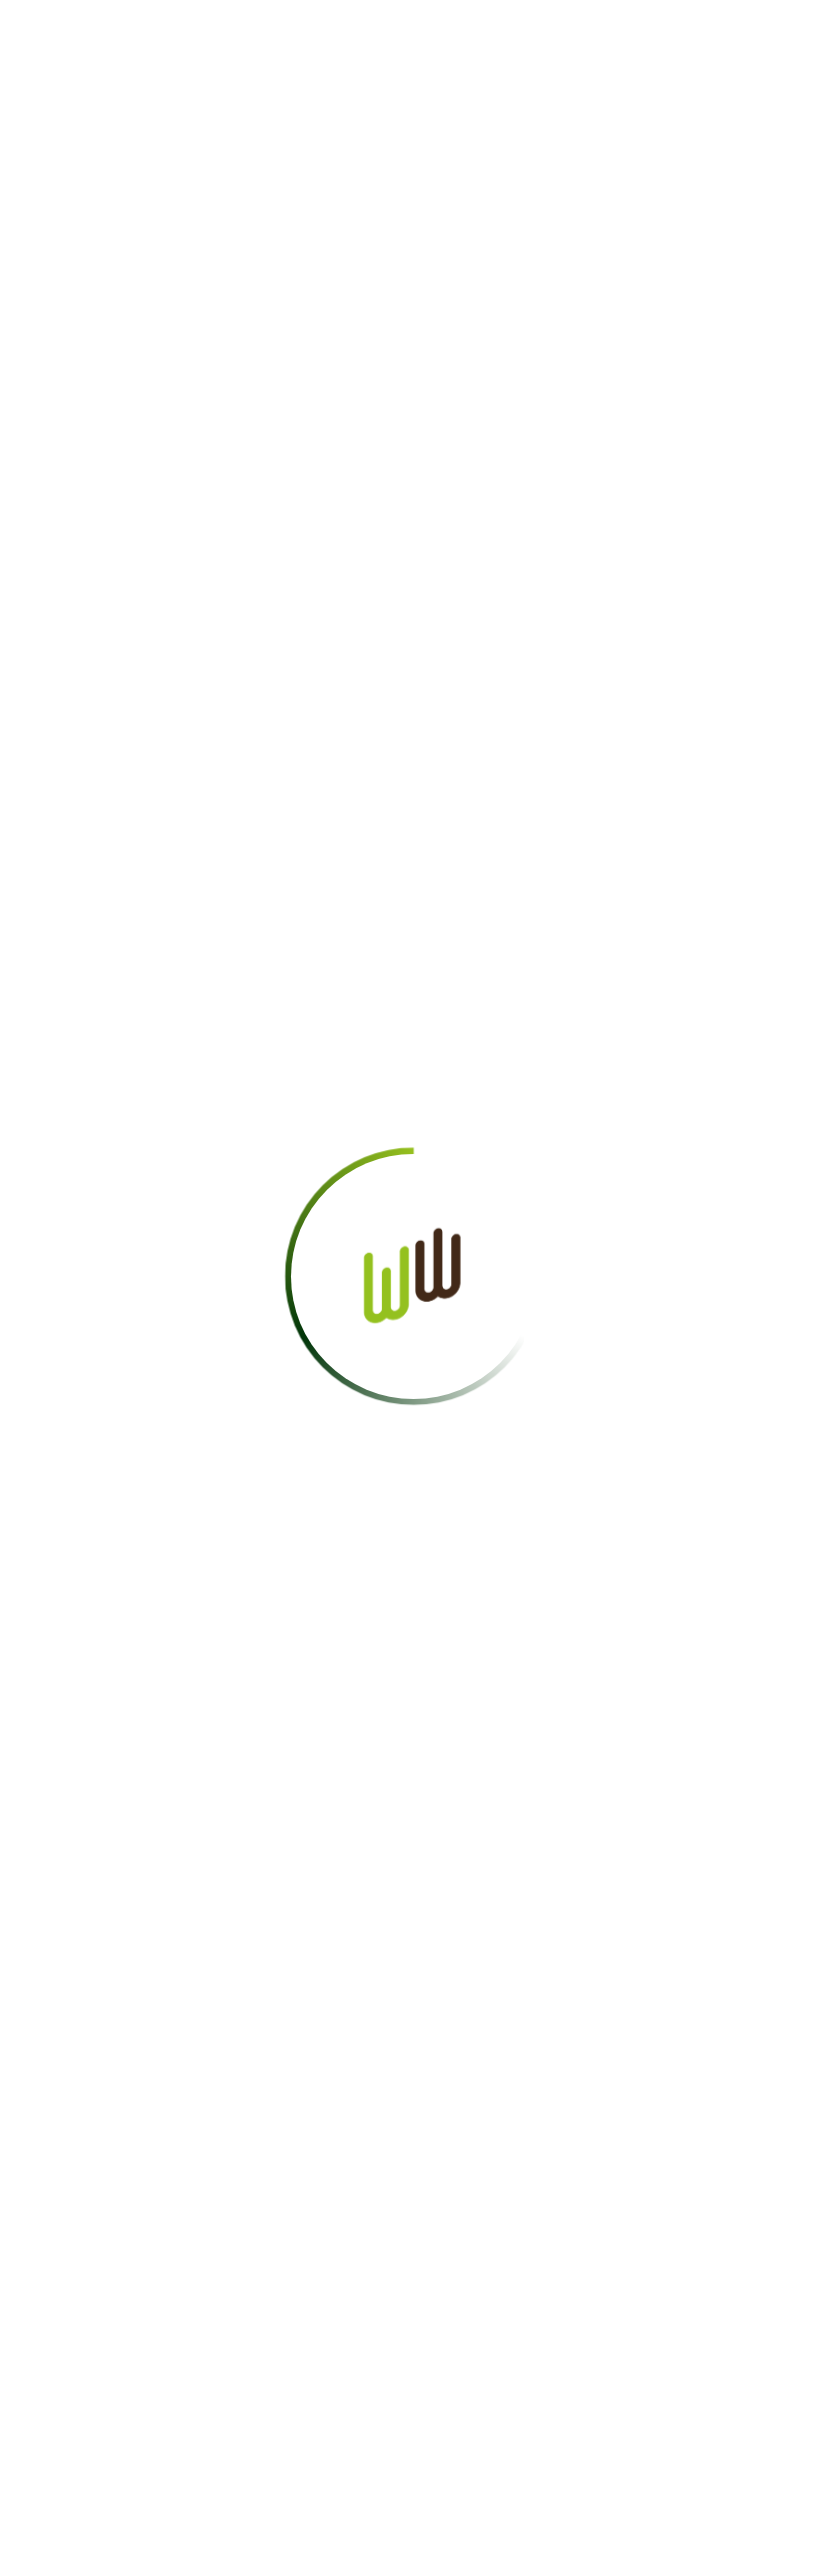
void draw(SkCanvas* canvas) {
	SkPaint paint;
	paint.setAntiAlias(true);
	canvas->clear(0xffffffff);
	canvas->drawImageRect(SkImages::DeferredFromEncodedData(SkData::MakeFromFileName("img1.png")), SkRect::MakeXYWH(284, 1147, 240, 259), SkSamplingOptions());
	paint.setColor(0xffffffff);
	canvas->drawCircle(413.5, 1276.5, 122.5, paint);
	canvas->drawImageRect(SkImages::DeferredFromEncodedData(SkData::MakeFromFileName("img2.png")), SkRect::MakeXYWH(363, 1227, 98, 97), SkSamplingOptions());
}
